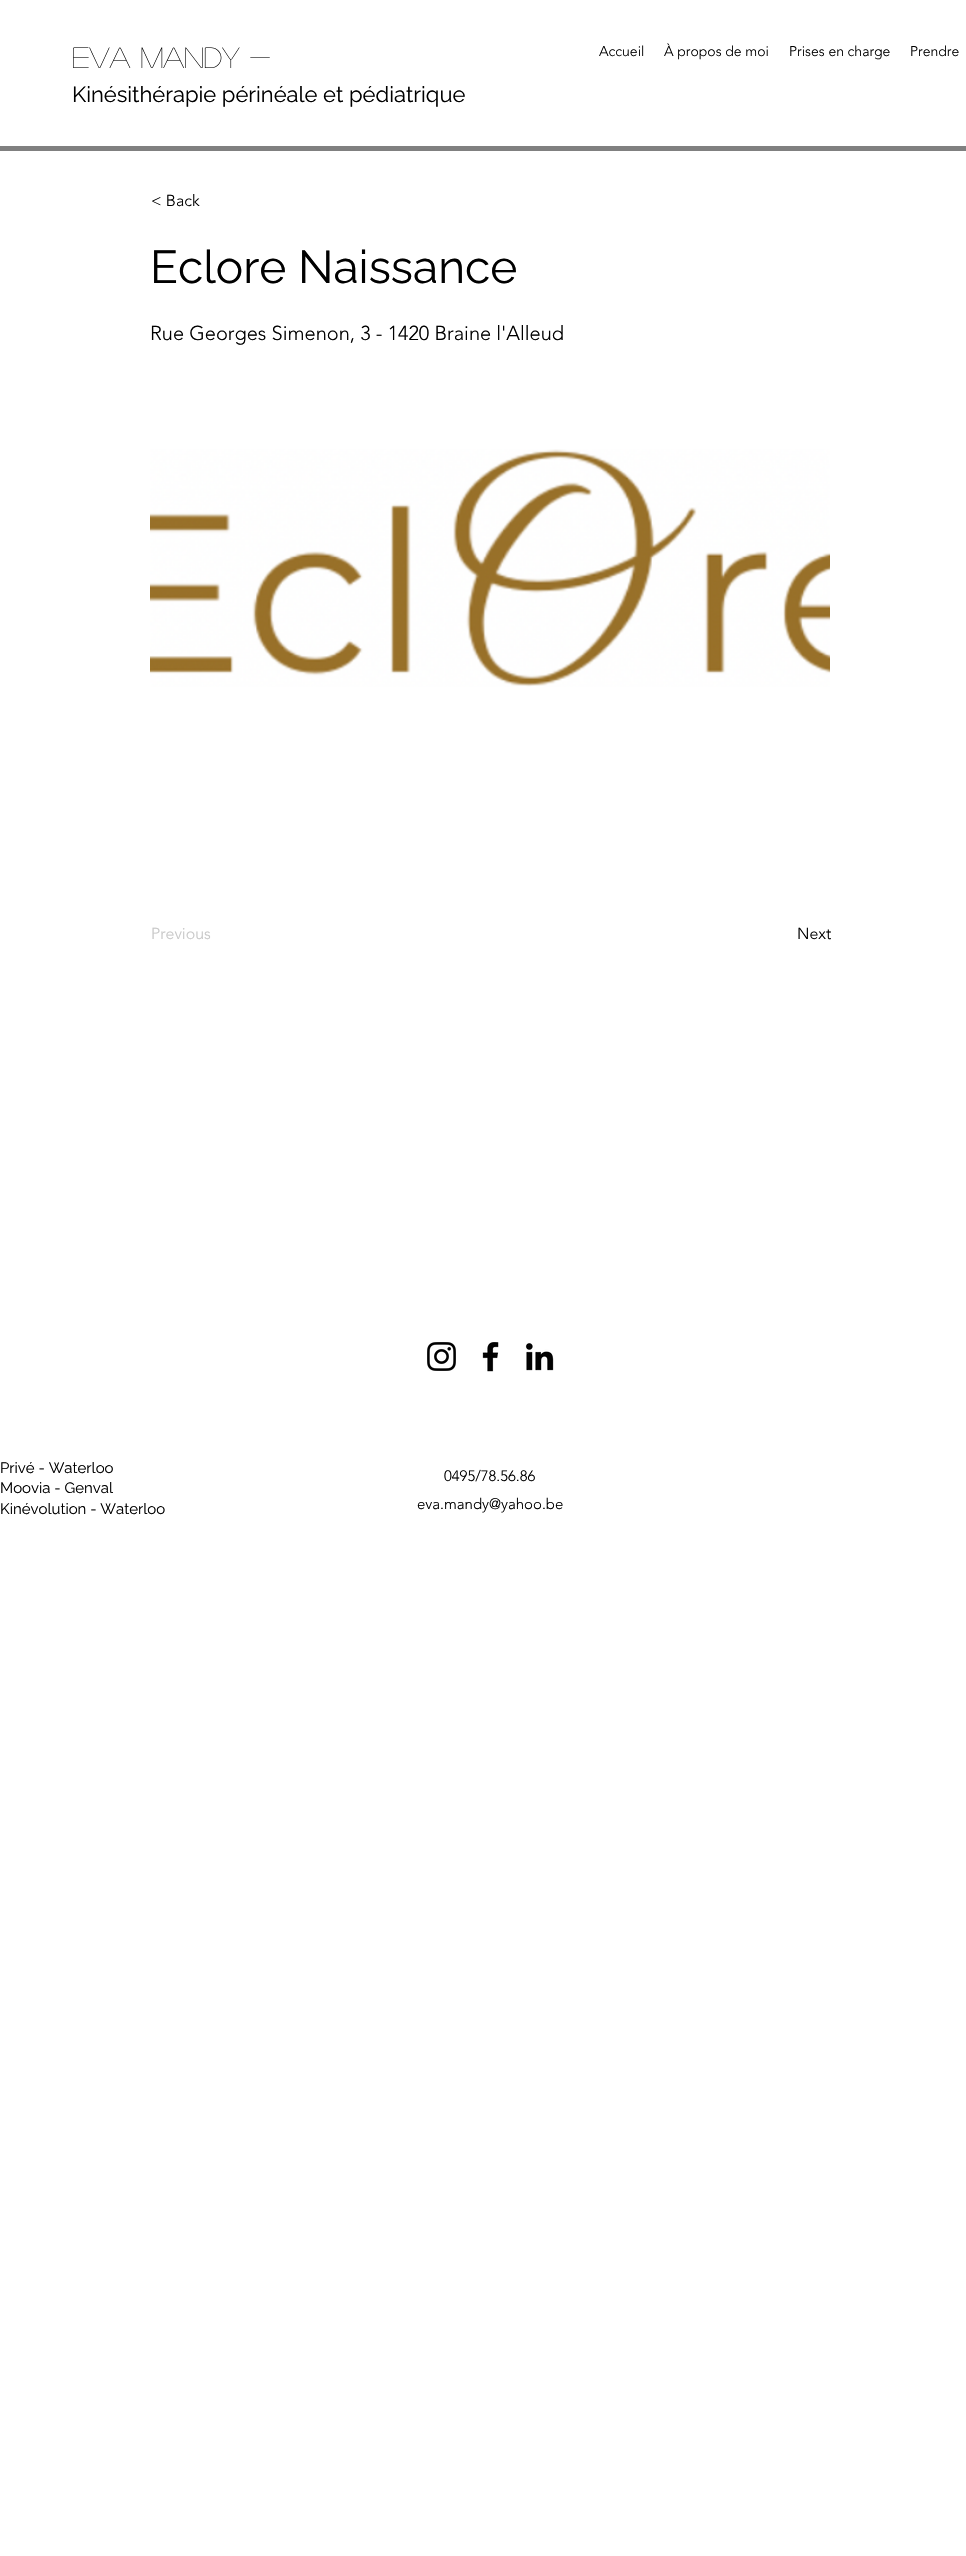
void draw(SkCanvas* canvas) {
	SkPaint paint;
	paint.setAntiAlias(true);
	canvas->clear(0xffffffff);
	SkFont f1(fontMgr->matchFamilyStyle("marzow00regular", SkFontStyle::Normal()), 29);
	f1.setSubpixel(true);
	paint.setColor(0xff000000);
	canvas->drawString("EVA MANDY -", 72, 68, f1, paint);
	SkFont f2(fontMgr->matchFamilyStyle("Raleway", SkFontStyle::Normal()), 22);
	f2.setSubpixel(true);
	canvas->drawString("Kinésithérapie périnéale et pédiatrique", 72, 102, f2, paint);
	SkFont f3(fontMgr->matchFamilyStyle("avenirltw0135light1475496", SkFontStyle(300, SkFontStyle::kNormal_Width, SkFontStyle::kUpright_Slant)), 14);
	f3.setSubpixel(true);
	canvas->drawString("Accueil", 599, 56, f3, paint);
	canvas->drawString("À propos de moi", 664, 56, f3, paint);
	canvas->drawString("Prises en charge", 789, 56, f3, paint);
	canvas->drawString("Prendre", 910, 56, f3, paint);
	paint.setColor(0xff808080);
	canvas->drawRect(SkRect::MakeXYWH(0, 146, 966, 5), paint);
	SkFont f4(fontMgr->matchFamilyStyle("avenirltw0135light1475496", SkFontStyle(300, SkFontStyle::kNormal_Width, SkFontStyle::kUpright_Slant)), 16);
	f4.setSubpixel(true);
	paint.setColor(0xff000000);
	canvas->drawString("< Back", 151, 206, f4, paint);
	SkFont f5(fontMgr->matchFamilyStyle("Raleway", SkFontStyle::Normal()), 46);
	f5.setSubpixel(true);
	canvas->drawString("Eclore Naissance", 150, 283, f5, paint);
	SkFont f6(fontMgr->matchFamilyStyle("avenirltw0135light1475496", SkFontStyle(300, SkFontStyle::kNormal_Width, SkFontStyle::kUpright_Slant)), 20);
	f6.setSubpixel(true);
	canvas->drawString("Rue Georges Simenon, 3 - 1420 Braine l'Alleud", 150, 340, f6, paint);
	canvas->drawImageRect(SkImages::DeferredFromEncodedData(SkData::MakeFromFileName("img1.png")), SkRect::MakeXYWH(150, 449, 680, 238), SkSamplingOptions());
	paint.setColor(0xffc7c7c7);
	canvas->drawString("Previous", 151, 939, f4, paint);
	paint.setColor(0xff000000);
	canvas->drawString("Next", 797, 939, f4, paint);
	canvas->drawImageRect(SkImages::DeferredFromEncodedData(SkData::MakeFromFileName("img2.png")), SkRect::MakeXYWH(427, 1342, 29, 29), SkSamplingOptions());
	canvas->drawImageRect(SkImages::DeferredFromEncodedData(SkData::MakeFromFileName("img3.png")), SkRect::MakeXYWH(482, 1342, 17, 30), SkSamplingOptions());
	canvas->drawImageRect(SkImages::DeferredFromEncodedData(SkData::MakeFromFileName("img4.png")), SkRect::MakeXYWH(525, 1343, 29, 28), SkSamplingOptions());
	SkFont f7(fontMgr->matchFamilyStyle("Raleway", SkFontStyle::Normal()), 15);
	f7.setSubpixel(true);
	canvas->drawString("Privé - Waterloo", 0, 1473, f7, paint);
	canvas->drawString("Moovia - Genval", 0, 1493, f7, paint);
	canvas->drawString("Kinévolution - Waterloo", 0, 1514, f7, paint);
	SkFont f8(fontMgr->matchFamilyStyle("avenirltw0135light1475496", SkFontStyle(300, SkFontStyle::kNormal_Width, SkFontStyle::kUpright_Slant)), 15);
	f8.setSubpixel(true);
	canvas->drawString("0495/78.56.86", 444, 1481, f8, paint);
	canvas->drawString("eva.mandy@yahoo.be", 417, 1509, f8, paint);
}
